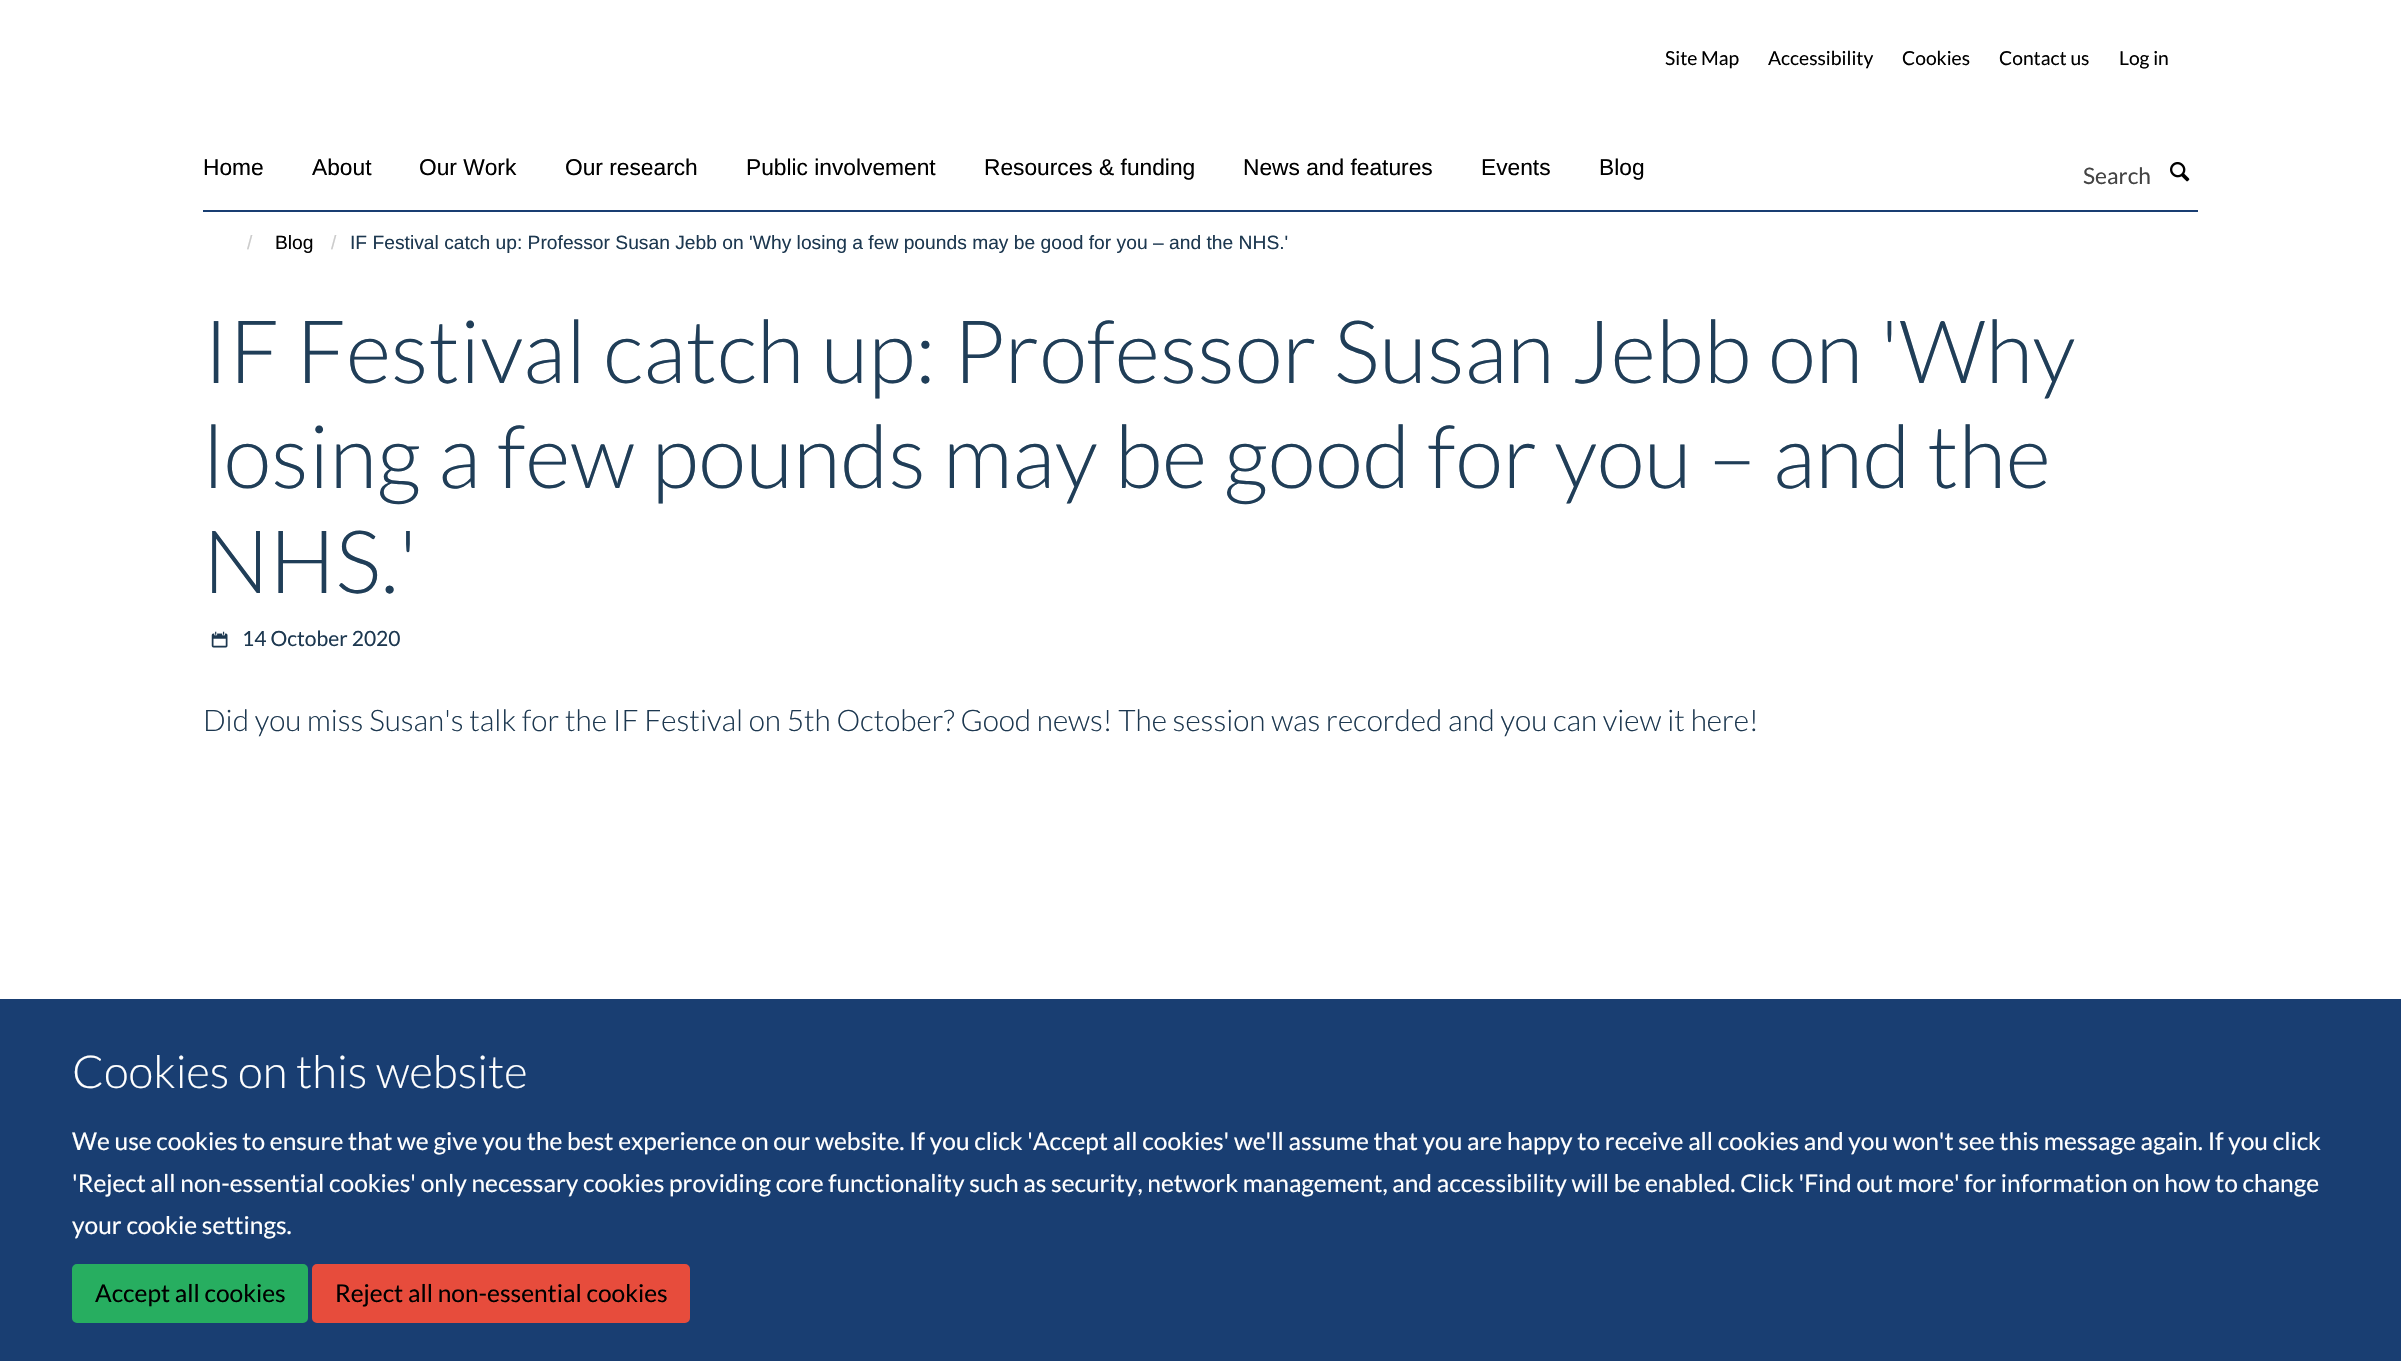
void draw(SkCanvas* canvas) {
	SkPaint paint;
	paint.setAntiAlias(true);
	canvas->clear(0xffffffff);
	SkFont f1(fontMgr->matchFamilyStyle("Lato", SkFontStyle::Normal()), 19.25);
	f1.setSubpixel(true);
	paint.setColor(0xff000000);
	canvas->drawString("Site Map", 1665, 65, f1, paint);
	canvas->drawString("Accessibility", 1768, 65, f1, paint);
	canvas->drawString("Cookies", 1902, 65, f1, paint);
	canvas->drawString("Contact us", 1999, 65, f1, paint);
	canvas->drawString("Log in", 2119, 65, f1, paint);
	paint.setColor(0xff193e72);
	canvas->drawRect(SkRect::MakeXYWH(203, 210, 1995, 2), paint);
	SkFont f2(fontMgr->matchFamilyStyle("Liberation Sans", SkFontStyle::Normal()), 22.75);
	f2.setSubpixel(true);
	paint.setColor(0xff000000);
	canvas->drawString("Home", 203, 175, f2, paint);
	canvas->drawString("About", 312, 175, f2, paint);
	canvas->drawString("Our Work", 419, 175, f2, paint);
	canvas->drawString("Our research", 565, 175, f2, paint);
	canvas->drawString("Public involvement", 746, 175, f2, paint);
	canvas->drawString("Resources & funding", 984, 175, f2, paint);
	canvas->drawString("News and features", 1243, 175, f2, paint);
	canvas->drawString("Events", 1481, 175, f2, paint);
	canvas->drawString("Blog", 1599, 175, f2, paint);
	SkFont f3(fontMgr->matchFamilyStyle("Lato", SkFontStyle::Normal()), 22.75);
	f3.setSubpixel(true);
	paint.setColor(0xff444444);
	canvas->drawString("Search", 2083, 184, f3, paint);
	canvas->drawImageRect(SkImages::DeferredFromEncodedData(SkData::MakeFromFileName("img1.png")), SkRect::MakeXYWH(2170, 162, 20, 20), SkSamplingOptions());
	SkFont f4(fontMgr->matchFamilyStyle("Liberation Sans", SkFontStyle::Normal()), 19.25);
	f4.setSubpixel(true);
	paint.setColor(0xffcccccc);
	canvas->drawString("/", 247, 249, f4, paint);
	paint.setColor(0xff000000);
	canvas->drawString("Blog", 275, 249, f4, paint);
	paint.setColor(0xffcccccc);
	canvas->drawString("/", 331, 249, f4, paint);
	paint.setColor(0xff1d3850);
	canvas->drawString("IF Festival catch up: Professor Susan Jebb on 'Why losing a few pounds may be good for you – and the NHS.'", 350, 249, f4, paint);
	SkFont f5(fontMgr->matchFamilyStyle("Lato", SkFontStyle(300, SkFontStyle::kNormal_Width, SkFontStyle::kUpright_Slant)), 87.5);
	f5.setSubpixel(true);
	paint.setColor(0xff203e58);
	canvas->drawString("IF Festival catch up: Professor Susan Jebb on 'Why", 203, 383, f5, paint);
	canvas->drawString("losing a few pounds may be good for you – and the", 203, 488, f5, paint);
	canvas->drawString("NHS.'", 203, 593, f5, paint);
	canvas->drawImageRect(SkImages::DeferredFromEncodedData(SkData::MakeFromFileName("img2.png")), SkRect::MakeXYWH(211, 631, 17, 17), SkSamplingOptions());
	SkFont f6(fontMgr->matchFamilyStyle("Lato", SkFontStyle::Normal()), 21);
	f6.setSubpixel(true);
	paint.setColor(0xff1d3850);
	canvas->drawString("14 October 2020", 242, 646, f6, paint);
	SkFont f7(fontMgr->matchFamilyStyle("Lato", SkFontStyle(300, SkFontStyle::kNormal_Width, SkFontStyle::kUpright_Slant)), 29.75);
	f7.setSubpixel(true);
	canvas->drawString("Did you miss Susan's talk for the IF Festival on 5th October? Good news! The session was recorded and you can view it here!", 203, 731, f7, paint);
	paint.setColor(0xff193e72);
	canvas->drawRect(SkRect::MakeXYWH(0, 999, 2401, 362), paint);
	SkFont f8(fontMgr->matchFamilyStyle("Lato", SkFontStyle(300, SkFontStyle::kNormal_Width, SkFontStyle::kUpright_Slant)), 45.5);
	f8.setSubpixel(true);
	paint.setColor(0xffffffff);
	canvas->drawString("Cookies on this website", 72, 1088, f8, paint);
	SkFont f9(fontMgr->matchFamilyStyle("Lato", SkFontStyle::Normal()), 24.5);
	f9.setSubpixel(true);
	canvas->drawString("We use cookies to ensure that we give you the best experience on our website. If you click 'Accept all cookies' we'll assume that you are happy to receive all cookies and you won't see this message again. If you click", 72, 1150, f9, paint);
	canvas->drawString("'Reject all non-essential cookies' only necessary cookies providing core functionality such as security, network management, and accessibility will be enabled. Click 'Find out more' for information on how to change", 72, 1192, f9, paint);
	canvas->drawString("your cookie settings.", 72, 1234, f9, paint);
	paint.setColor(0xff27ae60);
	canvas->drawRoundRect(SkRect::MakeXYWH(73, 1265, 234, 57), 4, 4, paint);
	paint.setStroke(true);
	paint.setStrokeWidth(2);
	canvas->drawRoundRect(SkRect::MakeXYWH(73, 1265, 234, 57), 4, 4, paint);
	paint.setStroke(false);
	paint.setColor(0xff000000);
	canvas->drawString("Accept all cookies", 95, 1302, f9, paint);
	paint.setColor(0xffe74c3c);
	canvas->drawRoundRect(SkRect::MakeXYWH(313, 1265, 376, 57), 4, 4, paint);
	paint.setStroke(true);
	canvas->drawRoundRect(SkRect::MakeXYWH(313, 1265, 376, 57), 4, 4, paint);
	paint.setStroke(false);
	paint.setColor(0xff000000);
	canvas->drawString("Reject all non-essential cookies", 335, 1302, f9, paint);
}
